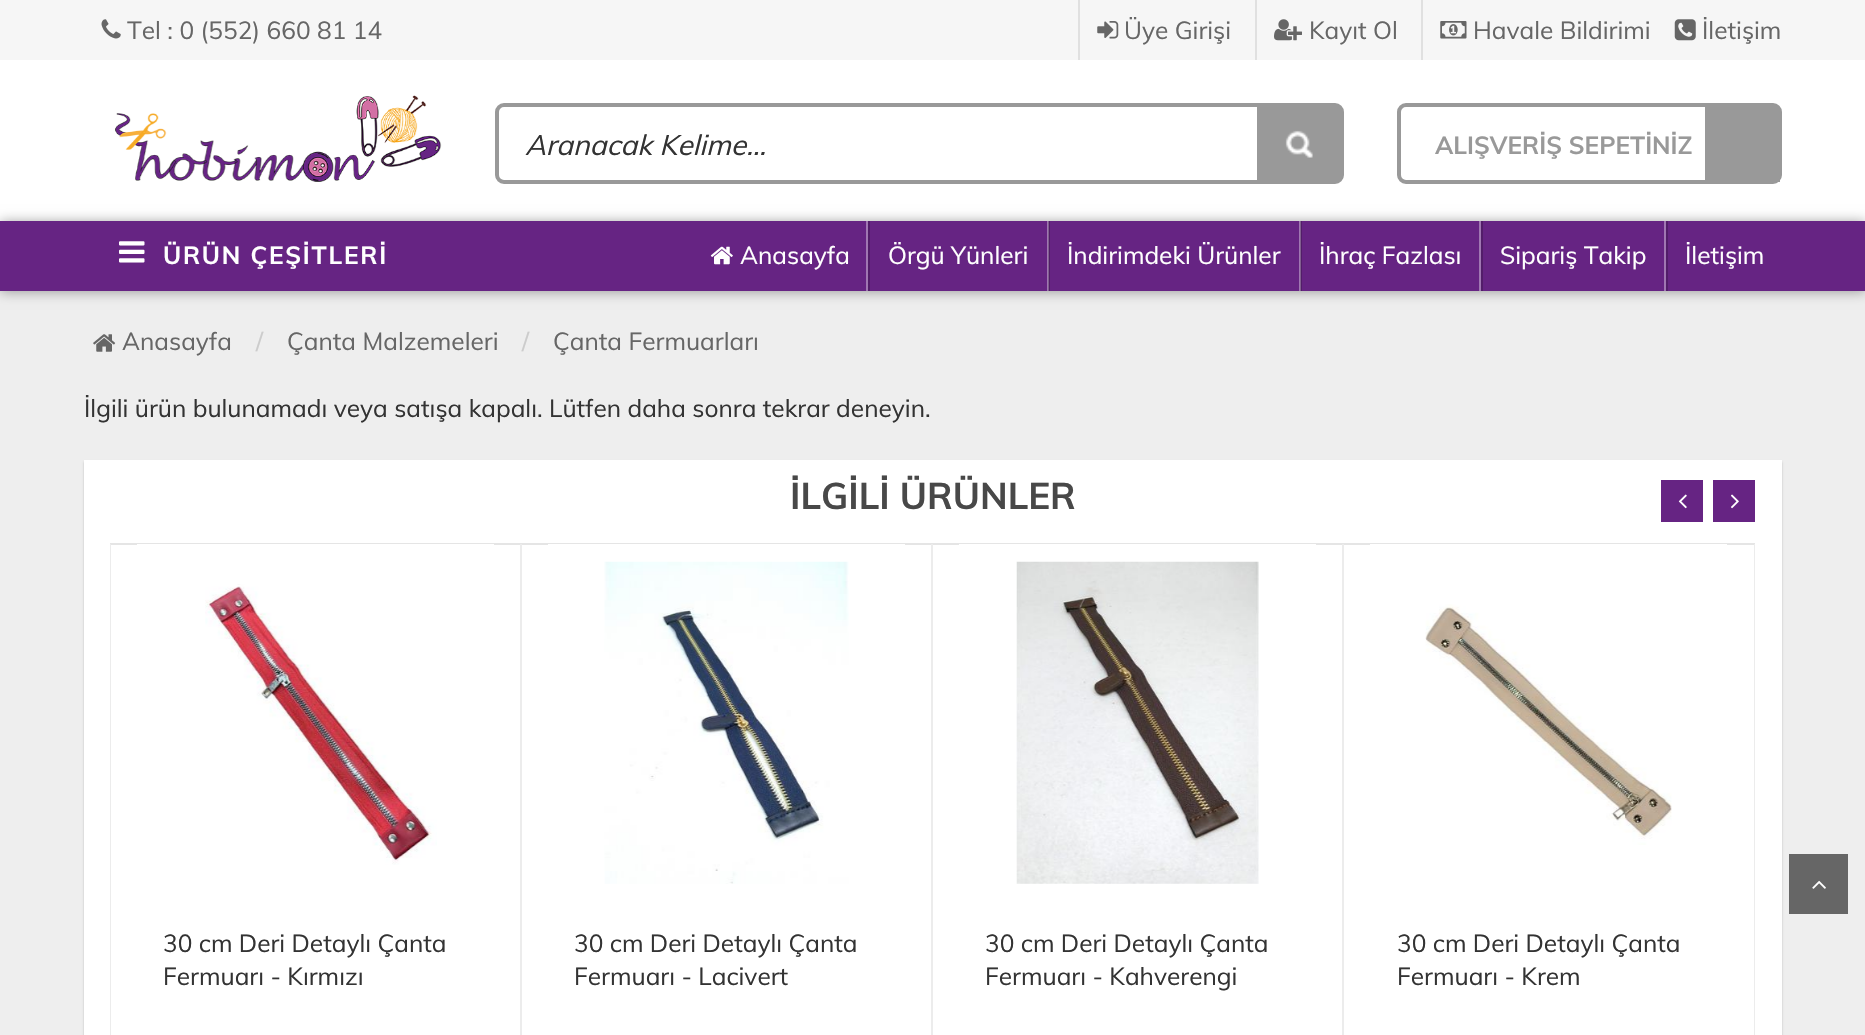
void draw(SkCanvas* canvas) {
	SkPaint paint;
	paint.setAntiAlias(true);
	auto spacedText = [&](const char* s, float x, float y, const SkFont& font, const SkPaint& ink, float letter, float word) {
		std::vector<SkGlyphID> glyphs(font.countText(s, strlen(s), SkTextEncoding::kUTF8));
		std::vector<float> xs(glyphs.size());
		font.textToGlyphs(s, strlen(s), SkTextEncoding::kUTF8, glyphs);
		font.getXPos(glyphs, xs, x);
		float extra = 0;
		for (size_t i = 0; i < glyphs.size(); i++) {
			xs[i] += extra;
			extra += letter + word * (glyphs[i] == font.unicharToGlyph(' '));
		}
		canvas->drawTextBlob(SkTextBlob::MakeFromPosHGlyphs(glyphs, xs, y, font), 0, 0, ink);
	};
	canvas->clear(0xffeeeeee);
	paint.setColor(0xffffffff);
	canvas->drawRect(SkRect::MakeXYWH(0, 60, 1865, 161), paint);
	paint.setColor(0xfff6f6f6);
	canvas->drawRect(SkRect::MakeXYWH(0, 0, 1865, 60), paint);
	canvas->drawImageRect(SkImages::DeferredFromEncodedData(SkData::MakeFromFileName("img1.png")), SkRect::MakeXYWH(101, 19, 20, 20), SkSamplingOptions());
	SkFont f1(fontMgr->matchFamilyStyle("Muli", SkFontStyle::Normal()), 24.5);
	f1.setSubpixel(true);
	paint.setColor(0xff666666);
	canvas->drawString("Tel : 0 (552) 660 81 14", 127, 39, f1, paint);
	paint.setColor(0xffe0e0e0);
	canvas->drawRect(SkRect::MakeXYWH(1078, 0, 2, 60), paint);
	canvas->drawImageRect(SkImages::DeferredFromEncodedData(SkData::MakeFromFileName("img2.png")), SkRect::MakeXYWH(1097, 21, 22, 18), SkSamplingOptions());
	paint.setColor(0xff666666);
	canvas->drawString("Üye Girişi", 1124, 39, f1, paint);
	paint.setColor(0xffe0e0e0);
	canvas->drawRect(SkRect::MakeXYWH(1255, 0, 2, 60), paint);
	canvas->drawImageRect(SkImages::DeferredFromEncodedData(SkData::MakeFromFileName("img3.png")), SkRect::MakeXYWH(1274, 19, 28, 22), SkSamplingOptions());
	paint.setColor(0xff666666);
	canvas->drawString("Kayıt Ol", 1309, 39, f1, paint);
	paint.setColor(0xffe0e0e0);
	canvas->drawRect(SkRect::MakeXYWH(1421, 0, 2, 60), paint);
	canvas->drawImageRect(SkImages::DeferredFromEncodedData(SkData::MakeFromFileName("img4.png")), SkRect::MakeXYWH(1440, 21, 27, 18), SkSamplingOptions());
	paint.setColor(0xff666666);
	canvas->drawString("Havale Bildirimi", 1473, 39, f1, paint);
	canvas->drawImageRect(SkImages::DeferredFromEncodedData(SkData::MakeFromFileName("img5.png")), SkRect::MakeXYWH(1674, 19, 22, 22), SkSamplingOptions());
	canvas->drawString("İletişim", 1702, 39, f1, paint);
	canvas->drawImageRect(SkImages::DeferredFromEncodedData(SkData::MakeFromFileName("img6.png")), SkRect::MakeXYWH(115, 95, 327, 87), SkSamplingOptions());
	paint.setStroke(true);
	paint.setStrokeWidth(4);
	paint.setColor(0xff999999);
	canvas->drawRoundRect(SkRect::MakeXYWH(497, 105, 845, 77), 7, 7, paint);
	SkFont f2(fontMgr->matchFamilyStyle("Muli", SkFontStyle::Italic()), 28.25);
	f2.setSubpixel(true);
	paint.setStroke(false);
	paint.setColor(0xff333333);
	canvas->drawString("Aranacak Kelime...", 525, 155, f2, paint);
	paint.setColor(0xff999999);
	canvas->drawRect(SkRect::MakeXYWH(1257, 107, 83, 73), paint);
	canvas->drawImageRect(SkImages::DeferredFromEncodedData(SkData::MakeFromFileName("img7.png")), SkRect::MakeXYWH(1285, 130, 28, 28), SkSamplingOptions());
	paint.setStroke(true);
	canvas->drawRoundRect(SkRect::MakeXYWH(1399, 105, 381, 77), 7, 7, paint);
	SkFont f3(fontMgr->matchFamilyStyle("Muli", SkFontStyle::Bold()), 24.5);
	f3.setSubpixel(true);
	paint.setStroke(false);
	canvas->drawString("ALIŞVERİŞ SEPETİNİZ", 1435, 154, f3, paint);
	canvas->drawRect(SkRect::MakeXYWH(1705, 107, 75, 75), paint);
	paint.setColor(0xff9c9c9c);
	paint.setMaskFilter(SkMaskFilter::MakeBlur(kNormal_SkBlurStyle, 6));
	canvas->drawRect(SkRect::MakeXYWH(0, 222, 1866, 70), paint);
	paint.setMaskFilter(nullptr);
	paint.setColor(0xff662483);
	canvas->drawRect(SkRect::MakeXYWH(0, 221, 1865, 70), paint);
	canvas->drawImageRect(SkImages::DeferredFromEncodedData(SkData::MakeFromFileName("img8.png")), SkRect::MakeXYWH(119, 241, 26, 22), SkSamplingOptions());
	paint.setColor(0xffffffff);
	spacedText("ÜRÜN ÇEŞİTLERİ", 163, 264, f3, paint, 1.75, 0);
	paint.setColor(0xffa077b2);
	canvas->drawRect(SkRect::MakeXYWH(866, 221, 2, 70), paint);
	canvas->drawImageRect(SkImages::DeferredFromEncodedData(SkData::MakeFromFileName("img9.png")), SkRect::MakeXYWH(710, 246, 23, 19), SkSamplingOptions());
	paint.setColor(0xffffffff);
	canvas->drawString("Anasayfa", 740, 264, f1, paint);
	paint.setColor(0xffa077b2);
	canvas->drawRect(SkRect::MakeXYWH(1047, 221, 2, 70), paint);
	paint.setColor(0xff521d69);
	canvas->drawRect(SkRect::MakeXYWH(868, 221, 2, 70), paint);
	paint.setColor(0xffffffff);
	canvas->drawString("Örgü Yünleri", 888, 264, f1, paint);
	paint.setColor(0xffa077b2);
	canvas->drawRect(SkRect::MakeXYWH(1299, 221, 2, 70), paint);
	paint.setColor(0x33000000);
	canvas->drawRect(SkRect::MakeXYWH(1048, 221, 2, 70), paint);
	paint.setColor(0xffffffff);
	canvas->drawString("İndirimdeki Ürünler", 1067, 264, f1, paint);
	paint.setColor(0xffa077b2);
	canvas->drawRect(SkRect::MakeXYWH(1479, 221, 2, 70), paint);
	paint.setColor(0x33000000);
	canvas->drawRect(SkRect::MakeXYWH(1300, 221, 2, 70), paint);
	paint.setColor(0xffffffff);
	canvas->drawString("İhraç Fazlası", 1319, 264, f1, paint);
	paint.setColor(0xffa077b2);
	canvas->drawRect(SkRect::MakeXYWH(1664, 221, 2, 70), paint);
	paint.setColor(0xff521d69);
	canvas->drawRect(SkRect::MakeXYWH(1481, 221, 2, 70), paint);
	paint.setColor(0xffffffff);
	canvas->drawString("Sipariş Takip", 1500, 264, f1, paint);
	paint.setColor(0xff521d69);
	canvas->drawRect(SkRect::MakeXYWH(1666, 221, 2, 70), paint);
	paint.setColor(0xffffffff);
	canvas->drawString("İletişim", 1685, 264, f1, paint);
	canvas->drawImageRect(SkImages::DeferredFromEncodedData(SkData::MakeFromFileName("img10.png")), SkRect::MakeXYWH(93, 334, 23, 18), SkSamplingOptions());
	paint.setColor(0xff666666);
	canvas->drawString("Anasayfa", 122, 350, f1, paint);
	paint.setColor(0xffcccccc);
	canvas->drawString("/", 256, 350, f1, paint);
	paint.setColor(0xff666666);
	canvas->drawString("Çanta Malzemeleri", 287, 350, f1, paint);
	paint.setColor(0xffcccccc);
	canvas->drawString("/", 522, 350, f1, paint);
	paint.setColor(0xff666666);
	canvas->drawString("Çanta Fermuarları", 553, 350, f1, paint);
	paint.setColor(0xff333333);
	canvas->drawString("İlgili ürün bulunamadı veya satışa kapalı. Lütfen daha sonra tekrar deneyin.", 84, 417, f1, paint);
	paint.setColor(0x33000000);
	paint.setMaskFilter(SkMaskFilter::MakeBlur(kNormal_SkBlurStyle, 1));
	canvas->drawRect(SkRect::MakeXYWH(84, 462, 1698, 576), paint);
	paint.setMaskFilter(nullptr);
	paint.setColor(0xffffffff);
	canvas->drawRect(SkRect::MakeXYWH(84, 460, 1698, 575), paint);
	paint.setColor(0xffe5e5e5);
	canvas->drawRect(SkRect::MakeXYWH(110, 543, 1645, 2), paint);
	SkFont f4(fontMgr->matchFamilyStyle("Muli", SkFontStyle::Bold()), 36.75);
	f4.setSubpixel(true);
	paint.setColor(0xff484848);
	canvas->drawString("İLGİLİ ÜRÜNLER", 790, 509, f4, paint);
	paint.setColor(0xff662483);
	canvas->drawRect(SkRect::MakeXYWH(1661, 480, 42, 42), paint);
	canvas->drawImageRect(SkImages::DeferredFromEncodedData(SkData::MakeFromFileName("img11.png")), SkRect::MakeXYWH(1678, 494, 9, 15), SkSamplingOptions());
	canvas->drawRect(SkRect::MakeXYWH(1713, 480, 42, 42), paint);
	canvas->drawImageRect(SkImages::DeferredFromEncodedData(SkData::MakeFromFileName("img12.png")), SkRect::MakeXYWH(1731, 494, 8, 15), SkSamplingOptions());
	paint.setColor(0xffececec);
	canvas->drawRect(SkRect::MakeXYWH(110, 544, 1, 491), paint);
	canvas->drawRect(SkRect::MakeXYWH(520, 544, 2, 491), paint);
	paint.setColor(0xffffffff);
	canvas->drawRect(SkRect::MakeXYWH(137, 544, 357, 1), paint);
	canvas->drawImageRect(SkImages::DeferredFromEncodedData(SkData::MakeFromFileName("img13.png")), SkRect::MakeXYWH(205, 584, 232, 281), SkSamplingOptions());
	paint.setColor(0xff333333);
	canvas->drawString("30 cm Deri Detaylı Çanta", 163, 952, f1, paint);
	canvas->drawString("Fermuarı - Kırmızı", 163, 985, f1, paint);
	paint.setColor(0xffececec);
	canvas->drawRect(SkRect::MakeXYWH(931, 544, 2, 491), paint);
	paint.setColor(0xffffffff);
	canvas->drawRect(SkRect::MakeXYWH(548, 544, 357, 1), paint);
	canvas->drawImageRect(SkImages::DeferredFromEncodedData(SkData::MakeFromFileName("img14.png")), SkRect::MakeXYWH(604, 561, 245, 323), SkSamplingOptions());
	paint.setColor(0xff333333);
	canvas->drawString("30 cm Deri Detaylı Çanta", 574, 952, f1, paint);
	canvas->drawString("Fermuarı - Lacivert", 574, 985, f1, paint);
	paint.setColor(0xffececec);
	canvas->drawRect(SkRect::MakeXYWH(1342, 544, 2, 491), paint);
	paint.setColor(0xffffffff);
	canvas->drawRect(SkRect::MakeXYWH(959, 544, 357, 1), paint);
	canvas->drawImageRect(SkImages::DeferredFromEncodedData(SkData::MakeFromFileName("img15.png")), SkRect::MakeXYWH(1016, 561, 243, 323), SkSamplingOptions());
	paint.setColor(0xff333333);
	canvas->drawString("30 cm Deri Detaylı Çanta", 985, 952, f1, paint);
	canvas->drawString("Fermuarı - Kahverengi", 985, 985, f1, paint);
	paint.setColor(0xffececec);
	canvas->drawRect(SkRect::MakeXYWH(1754, 544, 1, 491), paint);
	paint.setColor(0xffffffff);
	canvas->drawRect(SkRect::MakeXYWH(1370, 544, 357, 1), paint);
	canvas->drawImageRect(SkImages::DeferredFromEncodedData(SkData::MakeFromFileName("img16.png")), SkRect::MakeXYWH(1425, 604, 247, 241), SkSamplingOptions());
	paint.setColor(0xff333333);
	canvas->drawString("30 cm Deri Detaylı Çanta", 1397, 952, f1, paint);
	canvas->drawString("Fermuarı - Krem", 1397, 985, f1, paint);
	paint.setColor(0xff666666);
	canvas->drawRect(SkRect::MakeXYWH(1789, 854, 59, 60), paint);
	canvas->drawImageRect(SkImages::DeferredFromEncodedData(SkData::MakeFromFileName("img17.png")), SkRect::MakeXYWH(1812, 880, 14, 9), SkSamplingOptions());
}
